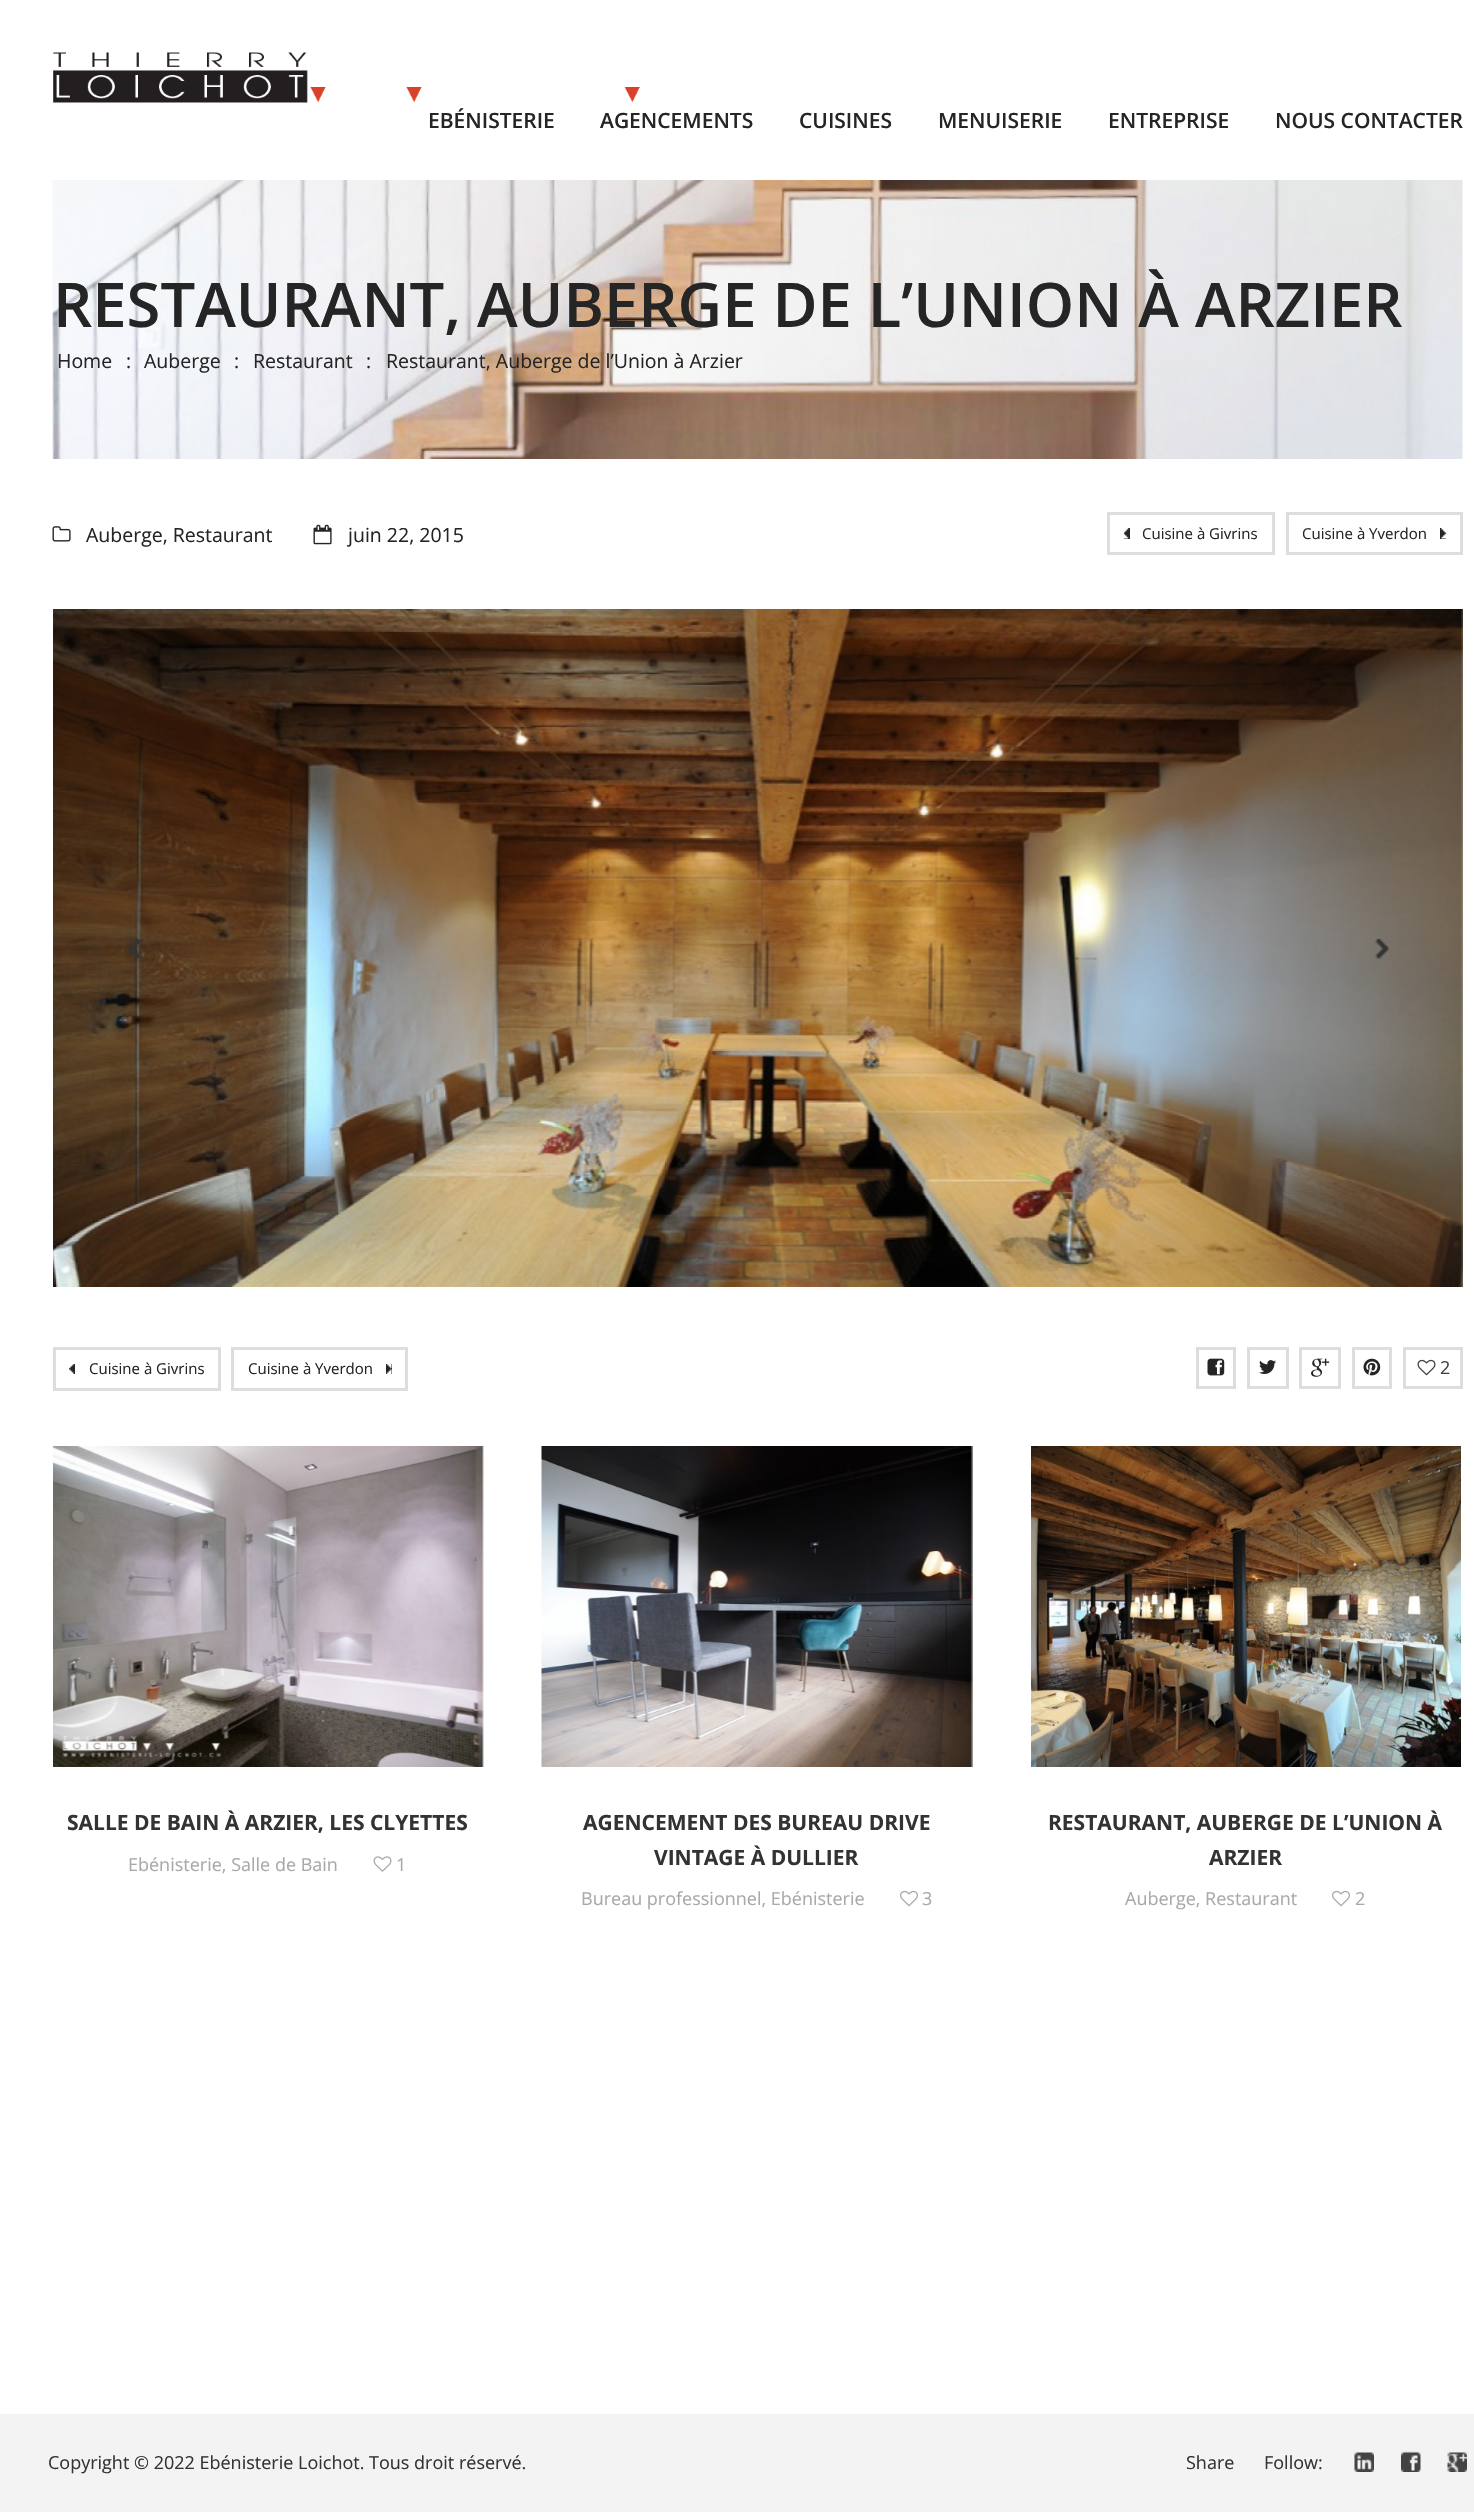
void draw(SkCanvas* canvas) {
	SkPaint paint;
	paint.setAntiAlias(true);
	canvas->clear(0xffffffff);
	canvas->drawImageRect(SkImages::DeferredFromEncodedData(SkData::MakeFromFileName("img1.png")), SkRect::MakeXYWH(53, 52, 587, 51), SkSamplingOptions());
	SkFont f1(fontMgr->matchFamilyStyle("Open Sans", SkFontStyle(600, SkFontStyle::kNormal_Width, SkFontStyle::kUpright_Slant)), 21);
	f1.setSubpixel(true);
	paint.setColor(0xff262525);
	canvas->drawString("EBÉNISTERIE", 428, 128, f1, paint);
	canvas->drawString("AGENCEMENTS", 600, 128, f1, paint);
	canvas->drawString("CUISINES", 799, 128, f1, paint);
	canvas->drawString("MENUISERIE", 938, 128, f1, paint);
	canvas->drawString("ENTREPRISE", 1108, 128, f1, paint);
	canvas->drawString("NOUS CONTACTER", 1275, 128, f1, paint);
	canvas->drawImageRect(SkImages::DeferredFromEncodedData(SkData::MakeFromFileName("img2.png")), SkRect::MakeXYWH(52, 180, 1411, 279), SkSamplingOptions());
	SkFont f2(fontMgr->matchFamilyStyle("Open Sans", SkFontStyle(600, SkFontStyle::kNormal_Width, SkFontStyle::kUpright_Slant)), 61.5);
	f2.setSubpixel(true);
	canvas->drawString("RESTAURANT, AUBERGE DE L’UNION À ARZIER", 53, 327, f2, paint);
	SkFont f3(fontMgr->matchFamilyStyle("Open Sans", SkFontStyle::Normal()), 19.5);
	f3.setSubpixel(true);
	canvas->drawString("Home", 57, 368, f3, paint);
	canvas->drawString(":", 126, 368, f3, paint);
	canvas->drawString("Auberge", 144, 368, f3, paint);
	canvas->drawString(":", 234, 368, f3, paint);
	canvas->drawString("Restaurant", 253, 368, f3, paint);
	canvas->drawString(":", 366, 368, f3, paint);
	canvas->drawString("Restaurant, Auberge de l’Union à Arzier", 386, 368, f3, paint);
	canvas->drawImageRect(SkImages::DeferredFromEncodedData(SkData::MakeFromFileName("img3.png")), SkRect::MakeXYWH(52, 526, 19, 16), SkSamplingOptions());
	canvas->drawString("Auberge, Restaurant", 86, 542, f3, paint);
	canvas->drawImageRect(SkImages::DeferredFromEncodedData(SkData::MakeFromFileName("img4.png")), SkRect::MakeXYWH(313, 524, 19, 21), SkSamplingOptions());
	canvas->drawString("juin 22, 2015", 348, 542, f3, paint);
	paint.setStroke(true);
	paint.setStrokeWidth(3);
	paint.setColor(0xffdddddd);
	canvas->drawRect(SkRect::MakeXYWH(1108.5, 513.5, 165, 40), paint);
	paint.setStroke(false);
	paint.setColor(0xff262525);
	canvas->drawRect(SkRect::MakeXYWH(1124, 528, 6, 11), paint);
	canvas->drawImageRect(SkImages::DeferredFromEncodedData(SkData::MakeFromFileName("img5.png")), SkRect::MakeXYWH(1124, 528, 5, 11), SkSamplingOptions());
	SkFont f4(fontMgr->matchFamilyStyle("Open Sans", SkFontStyle::Normal()), 15);
	f4.setSubpixel(true);
	canvas->drawString("Cuisine à Givrins", 1142, 539, f4, paint);
	paint.setStroke(true);
	paint.setColor(0xffdddddd);
	canvas->drawRect(SkRect::MakeXYWH(1287.5, 513.5, 174, 40), paint);
	paint.setStroke(false);
	paint.setColor(0xff262525);
	canvas->drawString("Cuisine à Yverdon", 1302, 539, f4, paint);
	canvas->drawRect(SkRect::MakeXYWH(1440, 528, 6, 11), paint);
	canvas->drawImageRect(SkImages::DeferredFromEncodedData(SkData::MakeFromFileName("img6.png")), SkRect::MakeXYWH(1441, 528, 5, 11), SkSamplingOptions());
	canvas->drawImageRect(SkImages::DeferredFromEncodedData(SkData::MakeFromFileName("img7.png")), SkRect::MakeXYWH(53, 609, 1410, 678), SkSamplingOptions());
	canvas->drawImageRect(SkImages::DeferredFromEncodedData(SkData::MakeFromFileName("img8.png")), SkRect::MakeXYWH(127, 939, 14, 20), SkSamplingOptions());
	canvas->drawImageRect(SkImages::DeferredFromEncodedData(SkData::MakeFromFileName("img9.png")), SkRect::MakeXYWH(1375, 939, 14, 20), SkSamplingOptions());
	paint.setStroke(true);
	paint.setColor(0xffdddddd);
	canvas->drawRect(SkRect::MakeXYWH(54.5, 1348.5, 165, 41), paint);
	paint.setStroke(false);
	paint.setColor(0xff262525);
	canvas->drawRect(SkRect::MakeXYWH(69, 1364, 6, 10), paint);
	canvas->drawImageRect(SkImages::DeferredFromEncodedData(SkData::MakeFromFileName("img10.png")), SkRect::MakeXYWH(69, 1364, 5, 10), SkSamplingOptions());
	canvas->drawString("Cuisine à Givrins", 89, 1374, f4, paint);
	paint.setStroke(true);
	paint.setColor(0xffdddddd);
	canvas->drawRect(SkRect::MakeXYWH(232.5, 1348.5, 174, 41), paint);
	paint.setStroke(false);
	paint.setColor(0xff262525);
	canvas->drawString("Cuisine à Yverdon", 248, 1374, f4, paint);
	canvas->drawRect(SkRect::MakeXYWH(386, 1364, 6, 10), paint);
	canvas->drawImageRect(SkImages::DeferredFromEncodedData(SkData::MakeFromFileName("img11.png")), SkRect::MakeXYWH(386, 1364, 6, 10), SkSamplingOptions());
	paint.setStroke(true);
	paint.setColor(0xffdddddd);
	canvas->drawRect(SkRect::MakeXYWH(1197.5, 1348.5, 37, 39), paint);
	canvas->drawImageRect(SkImages::DeferredFromEncodedData(SkData::MakeFromFileName("img12.png")), SkRect::MakeXYWH(1207, 1358, 18, 18), SkSamplingOptions());
	canvas->drawRect(SkRect::MakeXYWH(1248.5, 1348.5, 39, 39), paint);
	canvas->drawImageRect(SkImages::DeferredFromEncodedData(SkData::MakeFromFileName("img13.png")), SkRect::MakeXYWH(1259, 1360, 17, 14), SkSamplingOptions());
	canvas->drawRect(SkRect::MakeXYWH(1300.5, 1348.5, 39, 39), paint);
	canvas->drawImageRect(SkImages::DeferredFromEncodedData(SkData::MakeFromFileName("img14.png")), SkRect::MakeXYWH(1311, 1358, 19, 19), SkSamplingOptions());
	canvas->drawRect(SkRect::MakeXYWH(1353.5, 1348.5, 37, 39), paint);
	canvas->drawImageRect(SkImages::DeferredFromEncodedData(SkData::MakeFromFileName("img15.png")), SkRect::MakeXYWH(1363, 1358, 18, 18), SkSamplingOptions());
	canvas->drawRect(SkRect::MakeXYWH(1404.5, 1348.5, 57, 39), paint);
	canvas->drawImageRect(SkImages::DeferredFromEncodedData(SkData::MakeFromFileName("img16.png")), SkRect::MakeXYWH(1417, 1359, 19, 17), SkSamplingOptions());
	SkFont f5(fontMgr->matchFamilyStyle("Open Sans", SkFontStyle::Normal()), 18);
	f5.setSubpixel(true);
	paint.setStroke(false);
	paint.setColor(0xff424242);
	canvas->drawString("2", 1440, 1374, f5, paint);
	canvas->drawImageRect(SkImages::DeferredFromEncodedData(SkData::MakeFromFileName("img17.png")), SkRect::MakeXYWH(53, 1446, 431, 321), SkSamplingOptions());
	SkFont f6(fontMgr->matchFamilyStyle("Open Sans", SkFontStyle::Bold()), 21);
	f6.setSubpixel(true);
	paint.setColor(0xff333333);
	canvas->drawString("SALLE DE BAIN À ARZIER, LES CLYETTES", 67, 1830, f6, paint);
	paint.setColor(0xffa9a9a9);
	canvas->drawString("Ebénisterie, Salle de Bain", 128, 1871, f5, paint);
	canvas->drawImageRect(SkImages::DeferredFromEncodedData(SkData::MakeFromFileName("img18.png")), SkRect::MakeXYWH(373, 1856, 19, 16), SkSamplingOptions());
	canvas->drawString("1", 396, 1871, f5, paint);
	canvas->drawImageRect(SkImages::DeferredFromEncodedData(SkData::MakeFromFileName("img19.png")), SkRect::MakeXYWH(541, 1446, 432, 321), SkSamplingOptions());
	paint.setColor(0xff333333);
	canvas->drawString("AGENCEMENT DES BUREAU DRIVE", 583, 1830, f6, paint);
	canvas->drawString("VINTAGE À DULLIER", 654, 1865, f6, paint);
	paint.setColor(0xffa9a9a9);
	canvas->drawString("Bureau professionnel, Ebénisterie", 581, 1905, f5, paint);
	canvas->drawImageRect(SkImages::DeferredFromEncodedData(SkData::MakeFromFileName("img20.png")), SkRect::MakeXYWH(900, 1890, 18, 17), SkSamplingOptions());
	canvas->drawString("3", 922, 1905, f5, paint);
	canvas->drawImageRect(SkImages::DeferredFromEncodedData(SkData::MakeFromFileName("img21.png")), SkRect::MakeXYWH(1031, 1446, 430, 321), SkSamplingOptions());
	paint.setColor(0xff333333);
	canvas->drawString("RESTAURANT, AUBERGE DE L’UNION À", 1048, 1830, f6, paint);
	canvas->drawString("ARZIER", 1209, 1865, f6, paint);
	paint.setColor(0xffa9a9a9);
	canvas->drawString("Auberge, Restaurant", 1125, 1905, f5, paint);
	canvas->drawImageRect(SkImages::DeferredFromEncodedData(SkData::MakeFromFileName("img20.png")), SkRect::MakeXYWH(1332, 1890, 18, 17), SkSamplingOptions());
	canvas->drawString("2", 1355, 1905, f5, paint);
	paint.setColor(0xfff3f3f3);
	canvas->drawRect(SkRect::MakeXYWH(0, 2414, 1474, 98), paint);
	paint.setColor(0xff333333);
	canvas->drawString("Copyright © 2022 Ebénisterie Loichot. Tous droit réservé.", 48, 2469, f5, paint);
	canvas->drawString("Share", 1186, 2469, f5, paint);
	canvas->drawString("Follow:", 1264, 2469, f5, paint);
	canvas->drawImageRect(SkImages::DeferredFromEncodedData(SkData::MakeFromFileName("img22.png")), SkRect::MakeXYWH(1354, 2452, 20, 20), SkSamplingOptions());
	canvas->drawImageRect(SkImages::DeferredFromEncodedData(SkData::MakeFromFileName("img23.png")), SkRect::MakeXYWH(1401, 2451, 20, 21), SkSamplingOptions());
	canvas->drawImageRect(SkImages::DeferredFromEncodedData(SkData::MakeFromFileName("img24.png")), SkRect::MakeXYWH(1447, 2452, 20, 20), SkSamplingOptions());
}
